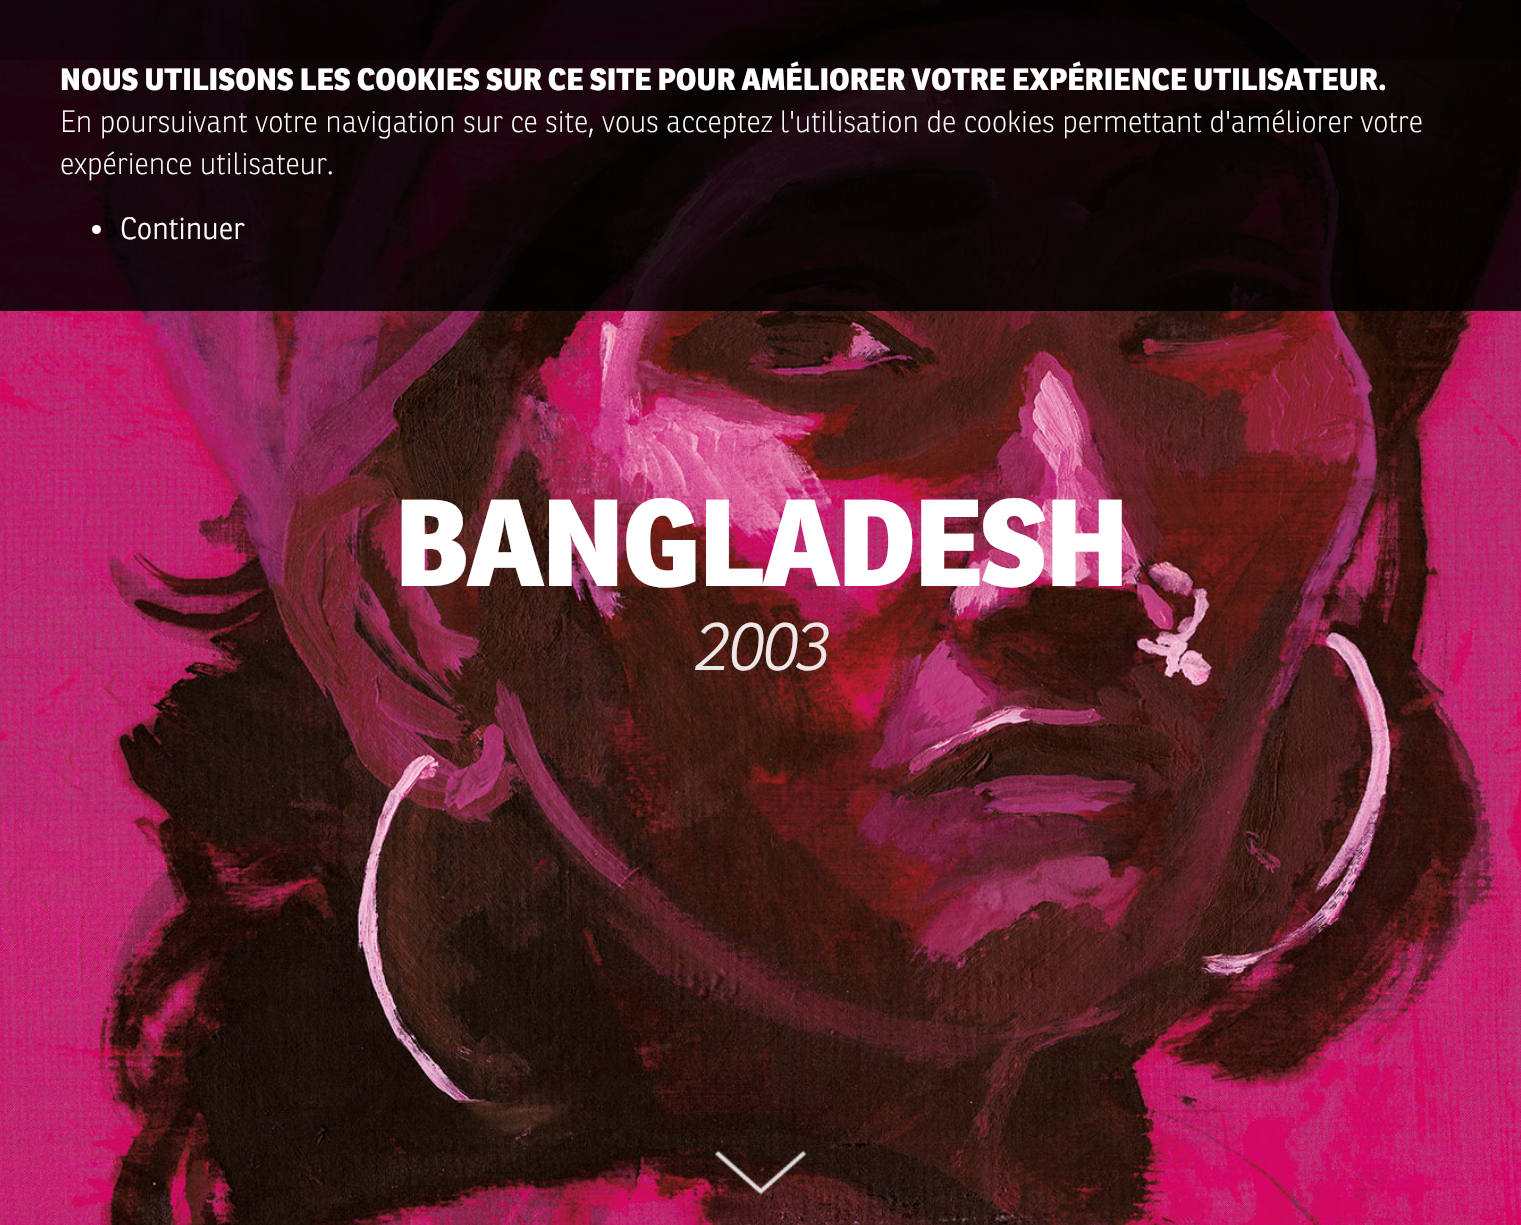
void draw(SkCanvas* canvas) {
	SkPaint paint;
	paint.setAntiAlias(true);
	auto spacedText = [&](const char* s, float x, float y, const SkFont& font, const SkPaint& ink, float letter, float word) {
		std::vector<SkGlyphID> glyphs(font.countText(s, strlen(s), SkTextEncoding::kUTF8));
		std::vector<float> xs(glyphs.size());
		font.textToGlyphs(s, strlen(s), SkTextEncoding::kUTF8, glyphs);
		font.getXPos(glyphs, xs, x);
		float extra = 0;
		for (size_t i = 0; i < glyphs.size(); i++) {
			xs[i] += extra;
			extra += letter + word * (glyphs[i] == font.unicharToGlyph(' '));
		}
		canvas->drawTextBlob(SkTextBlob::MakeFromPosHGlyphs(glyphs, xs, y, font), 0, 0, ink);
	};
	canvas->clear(0xffffffff);
	canvas->drawImageRect(SkImages::DeferredFromEncodedData(SkData::MakeFromFileName("img1.png")), SkRect::MakeXYWH(0, 0, 1521, 1225), SkSamplingOptions());
	paint.setColor(0x59000000);
	canvas->drawRect(SkRect::MakeXYWH(0, 0, 1521, 60), paint);
	paint.setColor(0xd9000000);
	canvas->drawRect(SkRect::MakeXYWH(0, 0, 1521, 311), paint);
	SkFont f1(fontMgr->matchFamilyStyle("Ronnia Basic", SkFontStyle(800, SkFontStyle::kNormal_Width, SkFontStyle::kUpright_Slant)), 30);
	f1.setSubpixel(true);
	paint.setColor(0xffffffff);
	canvas->drawString("NOUS UTILISONS LES COOKIES SUR CE SITE POUR AMÉLIORER VOTRE EXPÉRIENCE UTILISATEUR.", 60, 90, f1, paint);
	SkFont f2(fontMgr->matchFamilyStyle("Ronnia", SkFontStyle(100, SkFontStyle::kNormal_Width, SkFontStyle::kUpright_Slant)), 30);
	f2.setSubpixel(true);
	canvas->drawString("En poursuivant votre navigation sur ce site, vous acceptez l'utilisation de cookies permettant d'améliorer votre", 60, 132, f2, paint);
	canvas->drawString("expérience utilisateur.", 60, 174, f2, paint);
	canvas->drawCircle(96.5, 229.5, 4.5, paint);
	SkFont f3(fontMgr->matchFamilyStyle("Ronnia", SkFontStyle(300, SkFontStyle::kNormal_Width, SkFontStyle::kUpright_Slant)), 30);
	f3.setSubpixel(true);
	canvas->drawString("Continuer", 120, 239, f3, paint);
	SkFont f4(fontMgr->matchFamilyStyle("Ronnia Basic", SkFontStyle(800, SkFontStyle::kNormal_Width, SkFontStyle::kUpright_Slant)), 120);
	f4.setSubpixel(true);
	spacedText("BANGLADESH", 394, 586, f4, paint, -3, 0);
	SkFont f5(fontMgr->matchFamilyStyle("Ronnia", SkFontStyle(300, SkFontStyle::kNormal_Width, SkFontStyle::kItalic_Slant)), 68);
	f5.setSubpixel(true);
	paint.setColor(0xffede8e7);
	spacedText("2003", 694, 670, f5, paint, -1.5, 0);
	canvas->drawImageRect(SkImages::DeferredFromEncodedData(SkData::MakeFromFileName("img2.png")), SkRect::MakeXYWH(715, 1150, 91, 45), SkSamplingOptions());
}
